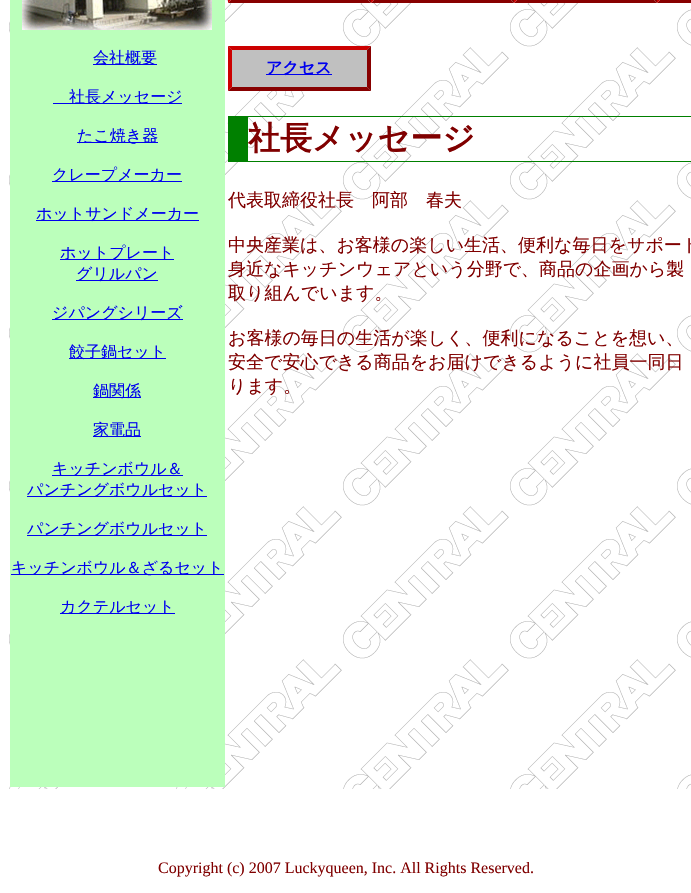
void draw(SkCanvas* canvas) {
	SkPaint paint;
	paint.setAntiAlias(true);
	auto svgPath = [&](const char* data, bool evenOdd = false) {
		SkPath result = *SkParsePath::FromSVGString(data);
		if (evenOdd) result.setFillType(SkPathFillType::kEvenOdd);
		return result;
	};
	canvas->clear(0xffffffff);
	canvas->drawImageRect(SkImages::DeferredFromEncodedData(SkData::MakeFromFileName("img1.png")), SkRect::MakeXYWH(9, 0, 682, 789), SkSamplingOptions());
	paint.setColor(0xffbbffbb);
	canvas->drawRect(SkRect::MakeXYWH(10, 0, 215, 787), paint);
	canvas->drawImageRect(SkImages::DeferredFromEncodedData(SkData::MakeFromFileName("img2.png")), SkRect::MakeXYWH(22, 0, 190, 30), SkSamplingOptions());
	paint.setColor(0xff0000ee);
	canvas->drawRect(SkRect::MakeXYWH(93, 64, 64, 1), paint);
	SkFont f1(fontMgr->matchFamilyStyle("WenQuanYi Zen Hei", SkFontStyle(500, SkFontStyle::kNormal_Width, SkFontStyle::kUpright_Slant)), 16);
	f1.setSubpixel(true);
	canvas->drawString("会社概要", 93, 63, f1, paint);
	canvas->drawRect(SkRect::MakeXYWH(53, 103, 129, 1), paint);
	canvas->drawString("社長メッセージ", 69, 102, f1, paint);
	canvas->drawRect(SkRect::MakeXYWH(77, 142, 81, 1), paint);
	canvas->drawString("たこ焼き器", 77, 141, f1, paint);
	canvas->drawRect(SkRect::MakeXYWH(52, 181, 130, 1), paint);
	canvas->drawString("クレープメーカー", 52, 180, f1, paint);
	canvas->drawRect(SkRect::MakeXYWH(36, 220, 163, 1), paint);
	canvas->drawString("ホットサンドメーカー", 36, 219, f1, paint);
	canvas->drawRect(SkRect::MakeXYWH(60, 259, 114, 1), paint);
	canvas->drawString("ホットプレート", 60, 258, f1, paint);
	canvas->drawRect(SkRect::MakeXYWH(76, 280, 82, 1), paint);
	canvas->drawString("グリルパン", 76, 279, f1, paint);
	canvas->drawRect(SkRect::MakeXYWH(52, 319, 131, 1), paint);
	canvas->drawString("ジパングシリーズ", 52, 318, f1, paint);
	canvas->drawRect(SkRect::MakeXYWH(69, 358, 97, 1), paint);
	canvas->drawString("餃子鍋セット", 69, 357, f1, paint);
	canvas->drawRect(SkRect::MakeXYWH(93, 397, 48, 1), paint);
	canvas->drawString("鍋関係", 93, 396, f1, paint);
	canvas->drawRect(SkRect::MakeXYWH(93, 436, 48, 1), paint);
	canvas->drawString("家電品", 93, 435, f1, paint);
	canvas->drawRect(SkRect::MakeXYWH(52, 475, 131, 1), paint);
	canvas->drawString("キッチンボウル＆", 52, 474, f1, paint);
	canvas->drawRect(SkRect::MakeXYWH(27, 496, 180, 1), paint);
	canvas->drawString("パンチングボウルセット", 27, 495, f1, paint);
	canvas->drawRect(SkRect::MakeXYWH(27, 535, 180, 1), paint);
	canvas->drawString("パンチングボウルセット", 27, 534, f1, paint);
	canvas->drawRect(SkRect::MakeXYWH(11, 574, 213, 1), paint);
	canvas->drawString("キッチンボウル＆ざるセット", 11, 573, f1, paint);
	canvas->drawRect(SkRect::MakeXYWH(60, 613, 115, 1), paint);
	canvas->drawString("カクテルセット", 60, 612, f1, paint);
	paint.setColor(0xff880000);
	canvas->drawPath(svgPath("M371-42V3L367-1V-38Z"), paint);
	canvas->drawPath(svgPath("M371 3H228L232-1H367Z"), paint);
	paint.setColor(0xffcc0000);
	canvas->drawPath(svgPath("M228 3V-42L232-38V-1Z"), paint);
	paint.setColor(0xff880000);
	canvas->drawPath(svgPath("M514-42V3L510-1V-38Z"), paint);
	canvas->drawPath(svgPath("M514 3H371L375-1H510Z"), paint);
	paint.setColor(0xffcc0000);
	canvas->drawPath(svgPath("M371 3V-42L375-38V-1Z"), paint);
	paint.setColor(0xff880000);
	canvas->drawPath(svgPath("M657-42V3L653-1V-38Z"), paint);
	canvas->drawPath(svgPath("M657 3H514L518-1H653Z"), paint);
	paint.setColor(0xffcc0000);
	canvas->drawPath(svgPath("M514 3V-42L518-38V-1Z"), paint);
	paint.setColor(0xff880000);
	canvas->drawPath(svgPath("M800 3H657L661-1H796Z"), paint);
	paint.setColor(0xffcc0000);
	canvas->drawPath(svgPath("M657 3V-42L661-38V-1Z"), paint);
	paint.setColor(0xffc0c0c0);
	canvas->drawRect(SkRect::MakeXYWH(228, 46, 143, 45), paint);
	paint.setColor(0xffcc0000);
	canvas->drawPath(svgPath("M228 46H371L367 50H232Z"), paint);
	paint.setColor(0xff880000);
	canvas->drawPath(svgPath("M371 46V91L367 87V50Z"), paint);
	canvas->drawPath(svgPath("M371 91H228L232 87H367Z"), paint);
	paint.setColor(0xffcc0000);
	canvas->drawPath(svgPath("M228 91V46L232 50V87Z"), paint);
	paint.setColor(0xff0000ee);
	canvas->drawRect(SkRect::MakeXYWH(266, 74, 66, 1), paint);
	SkFont f2(fontMgr->matchFamilyStyle("WenQuanYi Zen Hei", SkFontStyle::Bold()), 16);
	f2.setSubpixel(true);
	canvas->drawString("アクセス", 266, 73, f2, paint);
	paint.setColor(0xff008000);
	canvas->drawRect(SkRect::MakeXYWH(248, 116, 443, 1), paint);
	canvas->drawRect(SkRect::MakeXYWH(248, 161, 443, 1), paint);
	canvas->drawRect(SkRect::MakeXYWH(228, 116, 20, 46), paint);
	SkFont f3(fontMgr->matchFamilyStyle("WenQuanYi Zen Hei", SkFontStyle::Bold()), 32);
	f3.setSubpixel(true);
	paint.setColor(0xff800000);
	canvas->drawString("社長メッセージ", 248, 149, f3, paint);
	SkFont f4(fontMgr->matchFamilyStyle("WenQuanYi Zen Hei", SkFontStyle(500, SkFontStyle::kNormal_Width, SkFontStyle::kUpright_Slant)), 18);
	f4.setSubpixel(true);
	canvas->drawString("代表取締役社長　阿部　春夫", 228, 206, f4, paint);
	canvas->drawString("中央産業は、お客様の楽しい生活、便利な毎日をサポート", 228, 251, f4, paint);
	canvas->drawString("身近なキッチンウェアという分野で、商品の企画から製", 228, 275, f4, paint);
	canvas->drawString("取り組んでいます。", 228, 299, f4, paint);
	canvas->drawString("お客様の毎日の生活が楽しく、便利になることを想い、", 228, 344, f4, paint);
	canvas->drawString("安全で安心できる商品をお届けできるように社員一同日", 228, 368, f4, paint);
	canvas->drawString("ります。", 228, 392, f4, paint);
	SkFont f5(fontMgr->matchFamilyStyle("Liberation Serif", SkFontStyle::Normal()), 16);
	f5.setSubpixel(true);
	canvas->drawString("Copyright (c) 2007 Luckyqueen, Inc. All Rights Reserved.", 158, 873, f5, paint);
}
